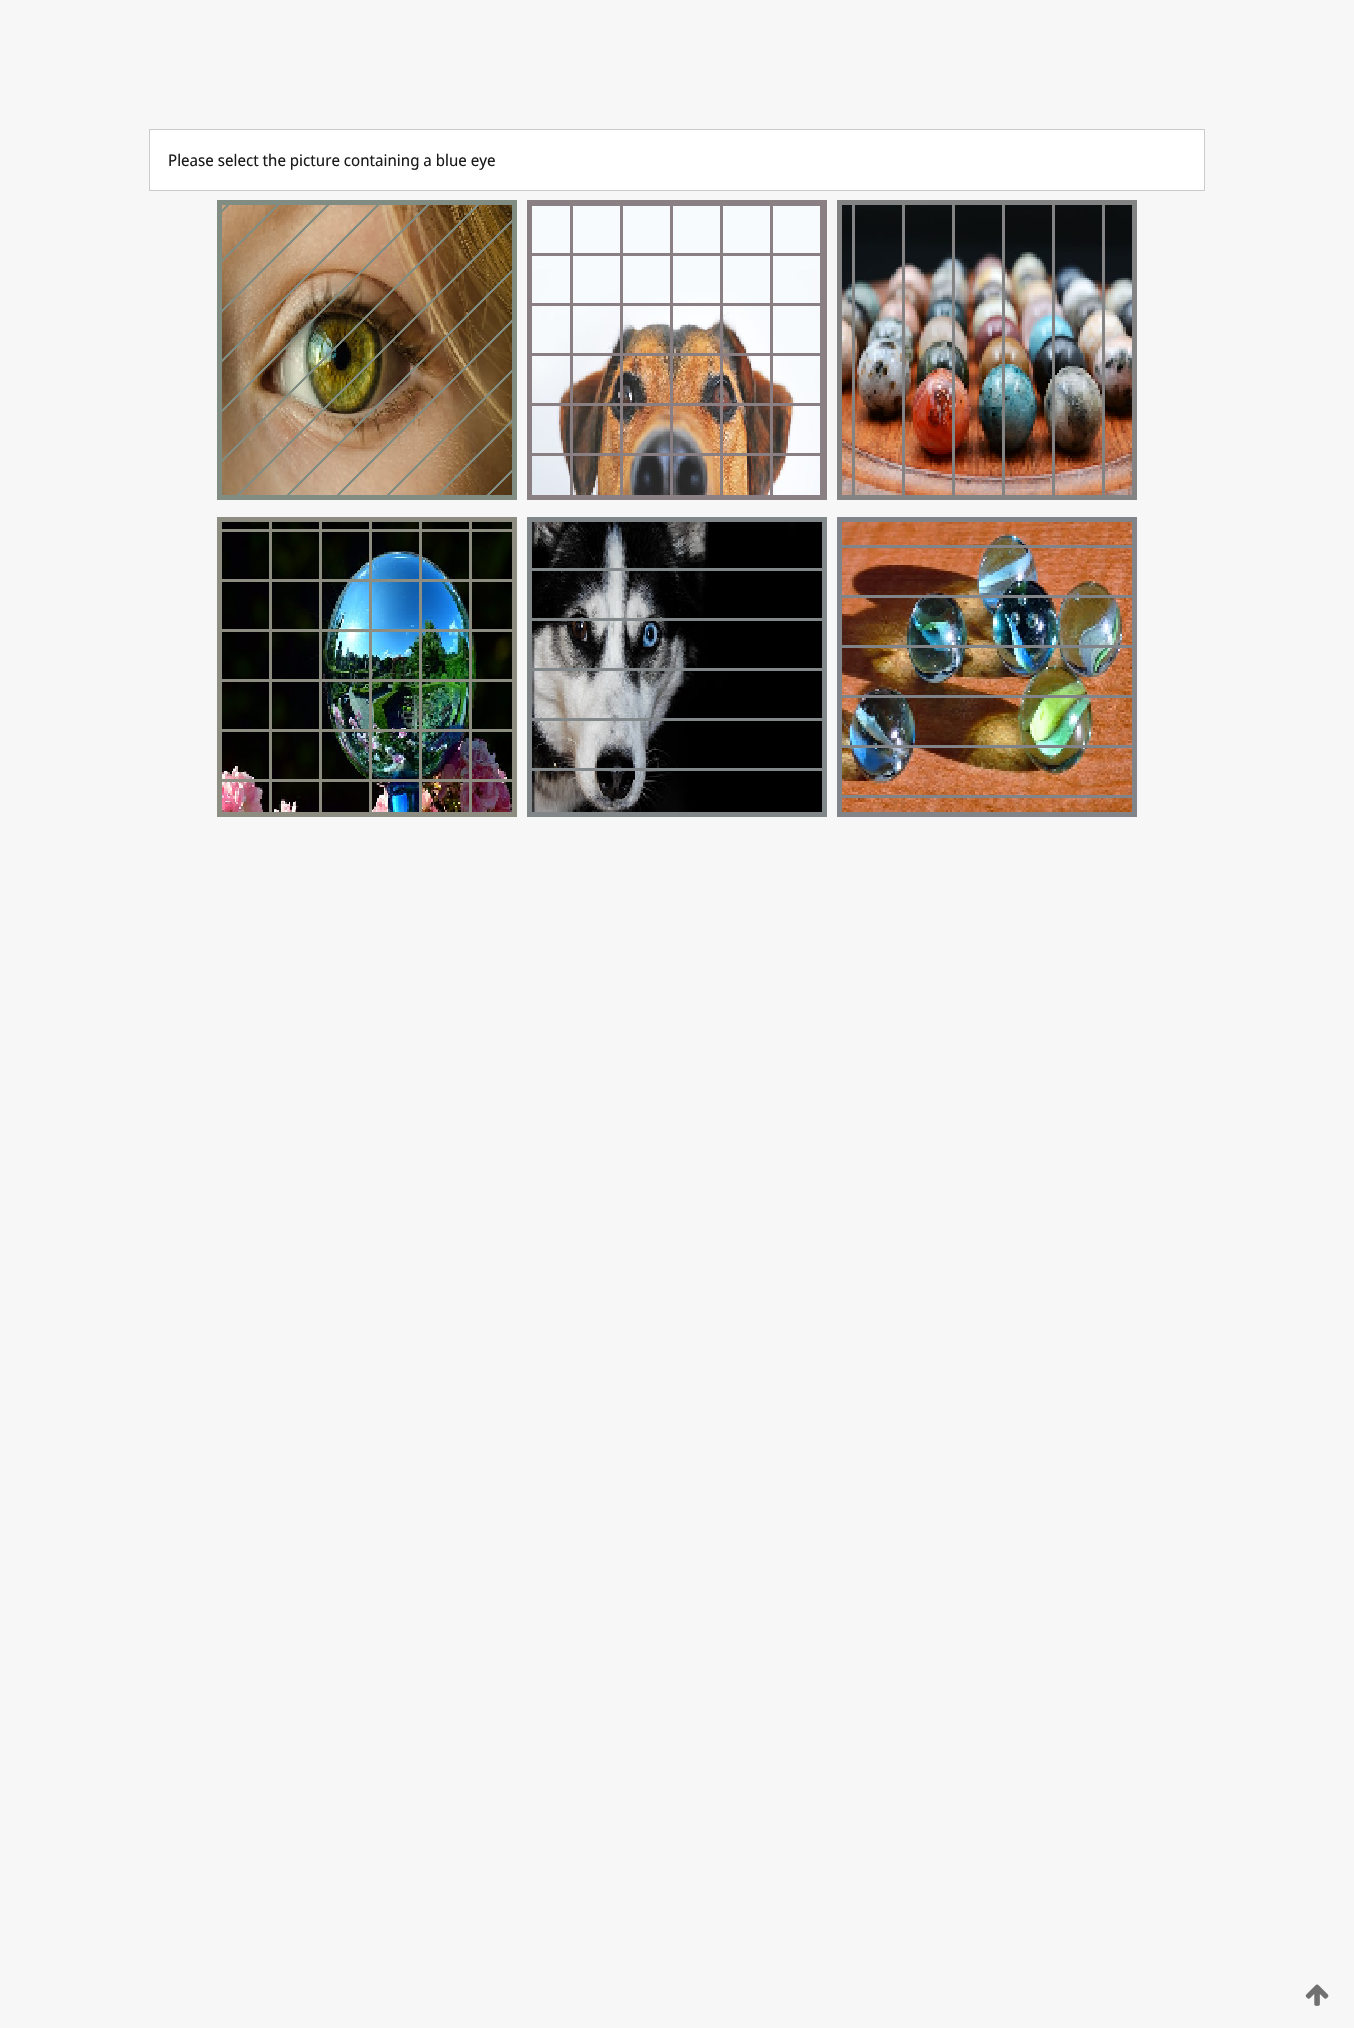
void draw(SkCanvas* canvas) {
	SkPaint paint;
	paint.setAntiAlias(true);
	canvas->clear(0xfff7f7f7);
	paint.setColor(0xffffffff);
	canvas->drawRect(SkRect::MakeXYWH(149.5, 129.5, 1055, 61), paint);
	paint.setStroke(true);
	paint.setStrokeWidth(1);
	paint.setColor(0xffcccccc);
	canvas->drawRect(SkRect::MakeXYWH(149.5, 129.5, 1055, 61), paint);
	SkFont f1(fontMgr->matchFamilyStyle("Noto Sans Display", SkFontStyle::Normal()), 16);
	f1.setSubpixel(true);
	paint.setStroke(false);
	paint.setColor(0xff1a1a1a);
	canvas->drawString("Please select the picture containing a blue eye", 168, 166, f1, paint);
	canvas->drawImageRect(SkImages::DeferredFromEncodedData(SkData::MakeFromFileName("img1.png")), SkRect::MakeXYWH(217, 200, 300, 300), SkSamplingOptions());
	canvas->drawImageRect(SkImages::DeferredFromEncodedData(SkData::MakeFromFileName("img2.png")), SkRect::MakeXYWH(527, 200, 300, 300), SkSamplingOptions());
	canvas->drawImageRect(SkImages::DeferredFromEncodedData(SkData::MakeFromFileName("img3.png")), SkRect::MakeXYWH(837, 200, 300, 300), SkSamplingOptions());
	canvas->drawImageRect(SkImages::DeferredFromEncodedData(SkData::MakeFromFileName("img4.png")), SkRect::MakeXYWH(217, 517, 300, 300), SkSamplingOptions());
	canvas->drawImageRect(SkImages::DeferredFromEncodedData(SkData::MakeFromFileName("img5.png")), SkRect::MakeXYWH(527, 517, 300, 300), SkSamplingOptions());
	canvas->drawImageRect(SkImages::DeferredFromEncodedData(SkData::MakeFromFileName("img6.png")), SkRect::MakeXYWH(837, 517, 300, 300), SkSamplingOptions());
	canvas->drawImageRect(SkImages::DeferredFromEncodedData(SkData::MakeFromFileName("img7.png")), SkRect::MakeXYWH(1305, 1984, 24, 22), SkSamplingOptions());
}
